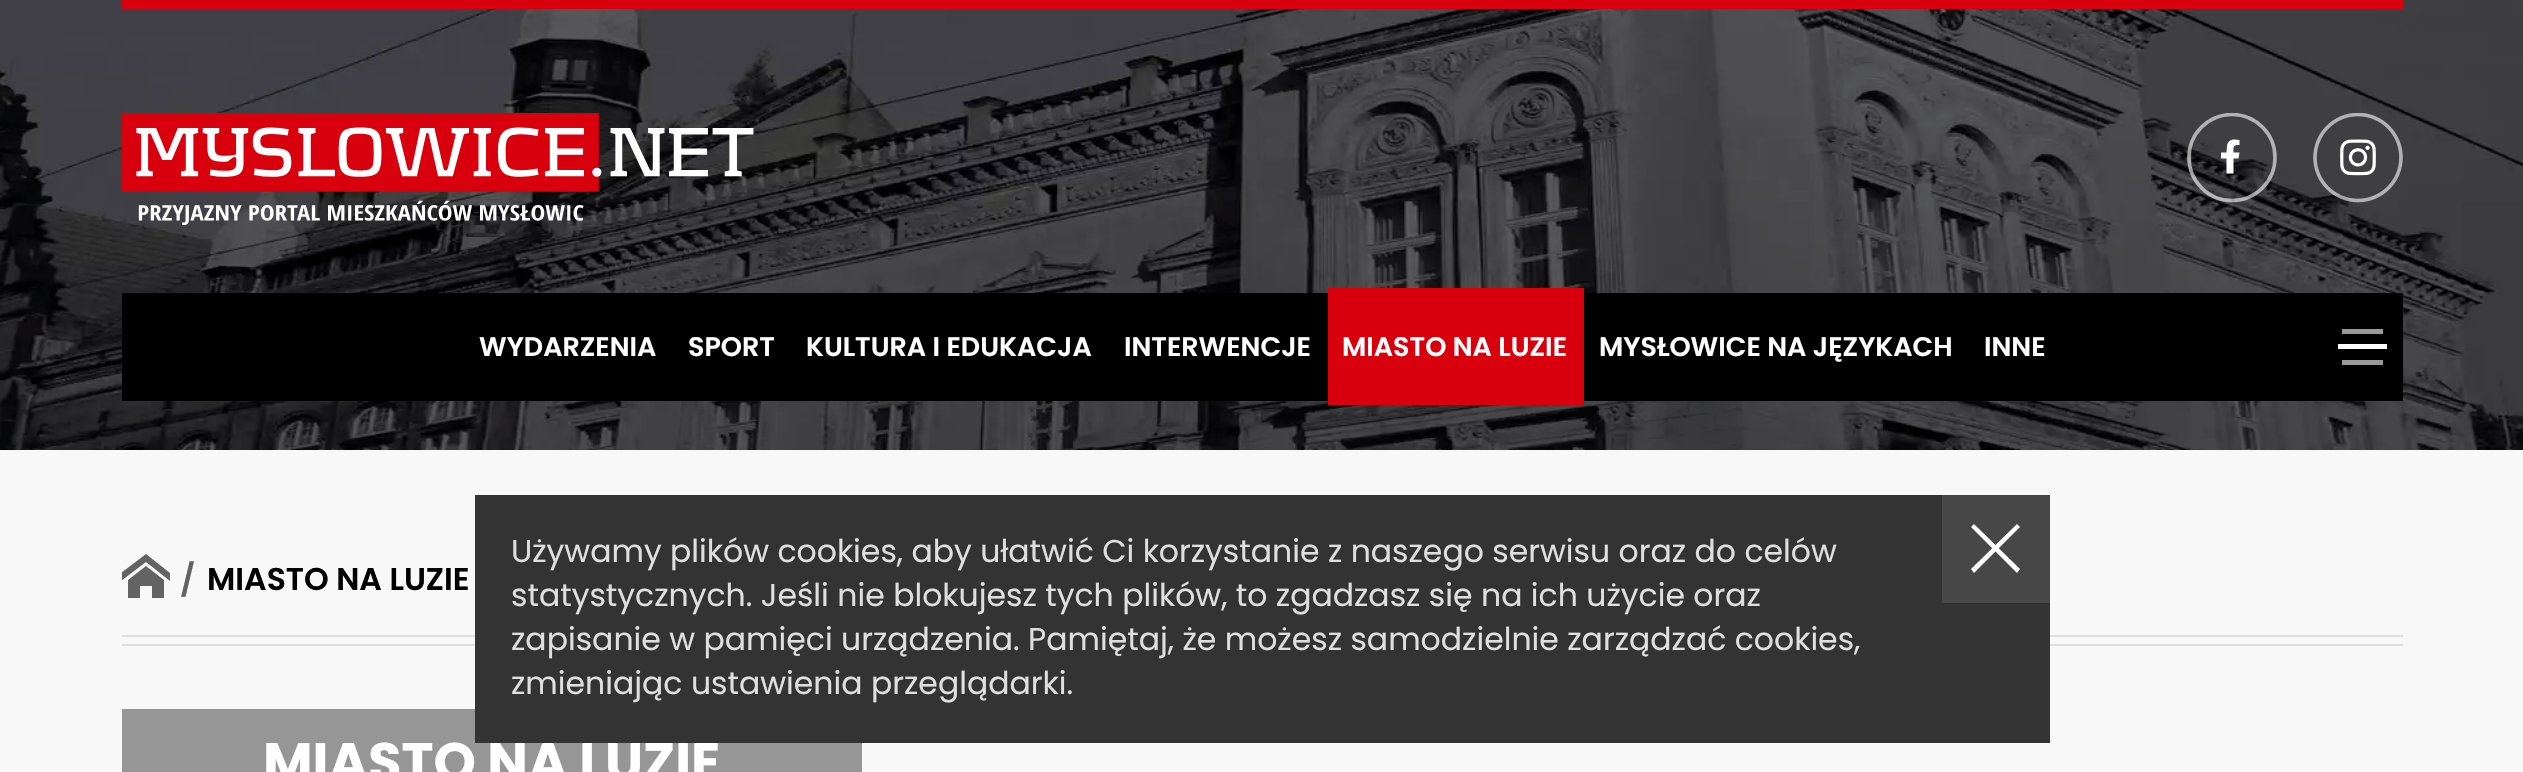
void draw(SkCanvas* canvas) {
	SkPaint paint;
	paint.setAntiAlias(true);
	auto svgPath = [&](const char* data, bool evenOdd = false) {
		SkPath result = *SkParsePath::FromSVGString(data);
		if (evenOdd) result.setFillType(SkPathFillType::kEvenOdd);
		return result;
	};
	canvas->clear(0xfff8f8f8);
	canvas->drawImageRect(SkImages::DeferredFromEncodedData(SkData::MakeFromFileName("img1.png")), SkRect::MakeXYWH(0, 0, 2523, 450), SkSamplingOptions());
	paint.setColor(0xffd9000d);
	canvas->drawRect(SkRect::MakeXYWH(122, 0, 2281, 9), paint);
	canvas->drawImageRect(SkImages::DeferredFromEncodedData(SkData::MakeFromFileName("img2.png")), SkRect::MakeXYWH(122, 113, 632, 112), SkSamplingOptions());
	paint.setColor(0xffffffff);
	canvas->drawPath(svgPath("M2238.5 158.5L2239.5 152.5H2233.5C2233.5 146 2233 145 2239.5 145V140C2234 139 2228 139 2227 146L2226.5 152.5H2221V158.5H2226.5V173.5H2233.5V158.5Z"), paint);
	canvas->save();
	canvas->clipRect(SkRect::MakeXYWH(2187, 113, 90, 90));
	paint.setStroke(true);
	paint.setStrokeWidth(3.6);
	paint.setColor(0x99ffffff);
	canvas->drawCircle(2232, 157.5, 43, paint);
	canvas->restore();
	canvas->drawImageRect(SkImages::DeferredFromEncodedData(SkData::MakeFromFileName("img3.png")), SkRect::MakeXYWH(2313, 113, 90, 90), SkSamplingOptions());
	paint.setStroke(false);
	paint.setColor(0xff000000);
	canvas->drawRect(SkRect::MakeXYWH(122, 293, 2281, 108), paint);
	SkFont f1(fontMgr->matchFamilyStyle("Poppins", SkFontStyle(600, SkFontStyle::kNormal_Width, SkFontStyle::kUpright_Slant)), 27);
	f1.setSubpixel(true);
	paint.setColor(0xffffffff);
	canvas->drawString("WYDARZENIA", 479, 356, f1, paint);
	canvas->drawString("SPORT", 688, 356, f1, paint);
	canvas->drawString("KULTURA I EDUKACJA", 806, 356, f1, paint);
	canvas->drawString("INTERWENCJE", 1124, 356, f1, paint);
	paint.setColor(0xffd9000d);
	canvas->drawRect(SkRect::MakeXYWH(1328, 288, 256, 117), paint);
	paint.setColor(0xffffffff);
	canvas->drawString("MIASTO NA LUZIE", 1342, 356, f1, paint);
	canvas->drawString("MYSŁOWICE NA JĘZYKACH", 1599, 356, f1, paint);
	canvas->drawString("INNE", 1984, 356, f1, paint);
	paint.setColor(0xff999999);
	canvas->drawRect(SkRect::MakeXYWH(2342, 360, 41, 5), paint);
	canvas->drawRect(SkRect::MakeXYWH(2342, 329, 41, 5), paint);
	paint.setColor(0xffffffff);
	canvas->drawRect(SkRect::MakeXYWH(2338, 344, 49, 5), paint);
	canvas->save();
	canvas->clipRect(SkRect::MakeXYWH(122, 554, 49, 45));
	paint.setColor(0xff636363);
	canvas->drawPath(svgPath("M170 581L146 562L121 581V573L146 554L170 573ZM164 580V598H152V586H140V598H128V580L146 566Z"), paint);
	canvas->restore();
	SkFont f2(fontMgr->matchFamilyStyle("Poppins", SkFontStyle(600, SkFontStyle::kNormal_Width, SkFontStyle::kUpright_Slant)), 31.5);
	f2.setSubpixel(true);
	canvas->drawString("/", 180, 591, f2, paint);
	paint.setColor(0xff000000);
	canvas->drawString("MIASTO NA LUZIE", 207, 590, f2, paint);
	paint.setColor(0xffdfdfdf);
	canvas->drawRect(SkRect::MakeXYWH(122, 635, 2281, 2), paint);
	canvas->drawRect(SkRect::MakeXYWH(122, 644, 2281, 2), paint);
	paint.setColor(0xff959695);
	canvas->drawRect(SkRect::MakeXYWH(122, 709, 740, 63), paint);
	SkFont f3(fontMgr->matchFamilyStyle("Poppins", SkFontStyle::Bold()), 54);
	f3.setSubpixel(true);
	paint.setColor(0xffffffff);
	canvas->drawString("MIASTO NA LUZIE", 263, 781, f3, paint);
	paint.setColor(0xff323332);
	canvas->drawRect(SkRect::MakeXYWH(475, 495, 1575, 248), paint);
	SkFont f4(fontMgr->matchFamilyStyle("Poppins", SkFontStyle::Normal()), 31.5);
	f4.setSubpixel(true);
	paint.setColor(0xffdfdfdf);
	canvas->drawString("Używamy plików cookies, aby ułatwić Ci korzystanie z naszego serwisu oraz do celów", 511, 562, f4, paint);
	paint.setColor(0xff464746);
	canvas->drawRect(SkRect::MakeXYWH(1942, 495, 108, 108), paint);
	paint.setColor(0xffffffff);
	canvas->drawPath(svgPath("M1971 569L2017 524L2020 527L1974 573Z"), paint);
	canvas->drawPath(svgPath("M1974 524L2020 569L2017 573L1971 527Z"), paint);
	paint.setColor(0xffdfdfdf);
	canvas->drawString("statystycznych. Jeśli nie blokujesz tych plików, to zgadzasz się na ich użycie oraz", 511, 606, f4, paint);
	canvas->drawString("zapisanie w pamięci urządzenia. Pamiętaj, że możesz samodzielnie zarządzać cookies,", 511, 650, f4, paint);
	canvas->drawString("zmieniając ustawienia przeglądarki.", 511, 694, f4, paint);
}
